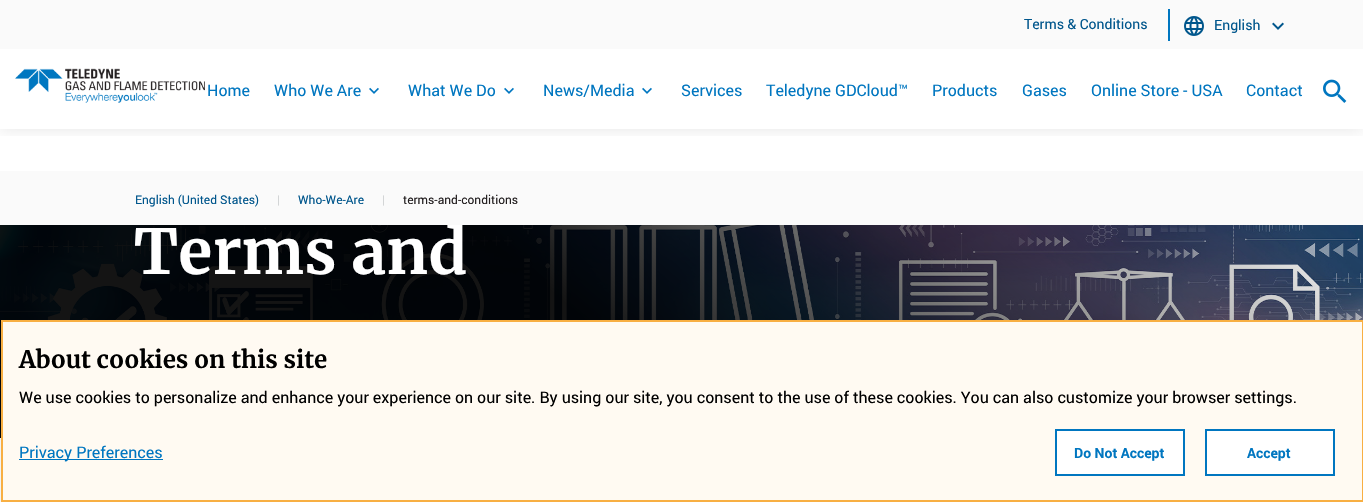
void draw(SkCanvas* canvas) {
	SkPaint paint;
	paint.setAntiAlias(true);
	canvas->clear(0xffffffff);
	canvas->save();
	canvas->clipRect(SkRect::MakeXYWH(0, 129, 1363, 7));
	paint.setColor(0x1a000000);
	paint.setMaskFilter(SkMaskFilter::MakeBlur(kNormal_SkBlurStyle, 8));
	canvas->drawRect(SkRect::MakeXYWH(0, 0, 1363, 129), paint);
	paint.setMaskFilter(nullptr);
	canvas->restore();
	canvas->drawImageRect(SkImages::DeferredFromEncodedData(SkData::MakeFromFileName("img1.png")), SkRect::MakeXYWH(15, 68, 190, 35), SkSamplingOptions());
	paint.setColor(0xfffafafa);
	canvas->drawRect(SkRect::MakeXYWH(0, 0, 1363, 49), paint);
	SkFont f1(fontMgr->matchFamilyStyle("Roboto", SkFontStyle::Normal()), 14);
	f1.setSubpixel(true);
	paint.setColor(0xff00568c);
	canvas->drawString("Terms & Conditions", 1024, 29, f1, paint);
	paint.setColor(0xff0076c0);
	canvas->drawRect(SkRect::MakeXYWH(1168, 9, 2, 32), paint);
	canvas->drawImageRect(SkImages::DeferredFromEncodedData(SkData::MakeFromFileName("img2.png")), SkRect::MakeXYWH(1184, 16, 20, 20), SkSamplingOptions());
	paint.setColor(0xff00568c);
	canvas->drawString("English", 1214, 30, f1, paint);
	canvas->drawImageRect(SkImages::DeferredFromEncodedData(SkData::MakeFromFileName("img3.png")), SkRect::MakeXYWH(1272, 22, 12, 8), SkSamplingOptions());
	SkFont f2(fontMgr->matchFamilyStyle("Roboto", SkFontStyle::Normal()), 16);
	f2.setSubpixel(true);
	paint.setColor(0xff0076c0);
	canvas->drawString("Home", 207, 96, f2, paint);
	canvas->drawString("Who We Are", 274, 96, f2, paint);
	canvas->drawImageRect(SkImages::DeferredFromEncodedData(SkData::MakeFromFileName("img4.png")), SkRect::MakeXYWH(369, 87, 10, 7), SkSamplingOptions());
	canvas->drawString("What We Do", 408, 96, f2, paint);
	canvas->drawImageRect(SkImages::DeferredFromEncodedData(SkData::MakeFromFileName("img4.png")), SkRect::MakeXYWH(504, 87, 10, 7), SkSamplingOptions());
	canvas->drawString("News/Media", 543, 96, f2, paint);
	canvas->drawImageRect(SkImages::DeferredFromEncodedData(SkData::MakeFromFileName("img4.png")), SkRect::MakeXYWH(642, 87, 10, 7), SkSamplingOptions());
	canvas->drawString("Services", 681, 96, f2, paint);
	canvas->drawString("Teledyne GDCloud™", 766, 96, f2, paint);
	canvas->drawString("Products", 932, 96, f2, paint);
	canvas->drawString("Gases", 1022, 96, f2, paint);
	canvas->drawString("Online Store - USA", 1091, 96, f2, paint);
	canvas->drawString("Contact", 1246, 96, f2, paint);
	canvas->drawImageRect(SkImages::DeferredFromEncodedData(SkData::MakeFromFileName("img5.png")), SkRect::MakeXYWH(1323, 79, 24, 24), SkSamplingOptions());
	paint.setColor(0xfffafafa);
	canvas->drawRect(SkRect::MakeXYWH(0, 171, 1363, 54), paint);
	SkFont f3(fontMgr->matchFamilyStyle("Roboto", SkFontStyle::Normal()), 12);
	f3.setSubpixel(true);
	paint.setColor(0xff00568c);
	canvas->drawString("English (United States)", 135, 204, f3, paint);
	paint.setColor(0xffd1d3d4);
	canvas->drawString("|", 277, 204, f3, paint);
	paint.setColor(0xff00568c);
	canvas->drawString("Who-We-Are", 298, 204, f3, paint);
	paint.setColor(0xffd1d3d4);
	canvas->drawString("|", 382, 204, f3, paint);
	paint.setColor(0xff231f20);
	canvas->drawString("terms-and-conditions", 403, 204, f3, paint);
	canvas->drawImageRect(SkImages::DeferredFromEncodedData(SkData::MakeFromFileName("img6.png")), SkRect::MakeXYWH(0, 225, 1363, 213), SkSamplingOptions());
	canvas->save();
	canvas->clipRect(SkRect::MakeXYWH(134, 225, 548, 144));
	SkFont f4(fontMgr->matchFamilyStyle("Merriweather", SkFontStyle::Bold()), 62);
	f4.setSubpixel(true);
	paint.setColor(0xffffffff);
	canvas->drawString("Terms and", 134, 274, f4, paint);
	canvas->restore();
	paint.setColor(0x1a000000);
	paint.setMaskFilter(SkMaskFilter::MakeBlur(kNormal_SkBlurStyle, 2.5));
	canvas->drawRect(SkRect::MakeXYWH(1, 325, 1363, 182), paint);
	paint.setMaskFilter(nullptr);
	paint.setColor(0xfffffaf2);
	canvas->drawRect(SkRect::MakeXYWH(2, 321, 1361, 180), paint);
	paint.setStroke(true);
	paint.setStrokeWidth(2);
	paint.setColor(0xfff8af43);
	canvas->drawRect(SkRect::MakeXYWH(2, 321, 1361, 180), paint);
	SkFont f5(fontMgr->matchFamilyStyle("Merriweather", SkFontStyle::Bold()), 24);
	f5.setSubpixel(true);
	paint.setStroke(false);
	paint.setColor(0xff000000);
	canvas->drawString("About cookies on this site", 19, 368, f5, paint);
	canvas->drawString("We use cookies to personalize and enhance your experience on our site. By using our site, you consent to the use of these cookies. You can also customize your browser settings.", 19, 403, f2, paint);
	paint.setColor(0xff0076c0);
	canvas->drawRect(SkRect::MakeXYWH(19, 459, 144, 1), paint);
	canvas->drawString("Privacy Preferences", 19, 458, f2, paint);
	paint.setColor(0xffffffff);
	canvas->drawRect(SkRect::MakeXYWH(1056, 430, 128, 45), paint);
	paint.setStroke(true);
	paint.setColor(0xff0076c0);
	canvas->drawRect(SkRect::MakeXYWH(1056, 430, 128, 45), paint);
	SkFont f6(fontMgr->matchFamilyStyle("Roboto", SkFontStyle::Bold()), 14);
	f6.setSubpixel(true);
	paint.setStroke(false);
	canvas->drawString("Do Not Accept", 1074, 458, f6, paint);
	paint.setColor(0xffffffff);
	canvas->drawRect(SkRect::MakeXYWH(1206, 430, 128, 45), paint);
	paint.setStroke(true);
	paint.setColor(0xff0076c0);
	canvas->drawRect(SkRect::MakeXYWH(1206, 430, 128, 45), paint);
	paint.setStroke(false);
	canvas->drawString("Accept", 1247, 458, f6, paint);
}
